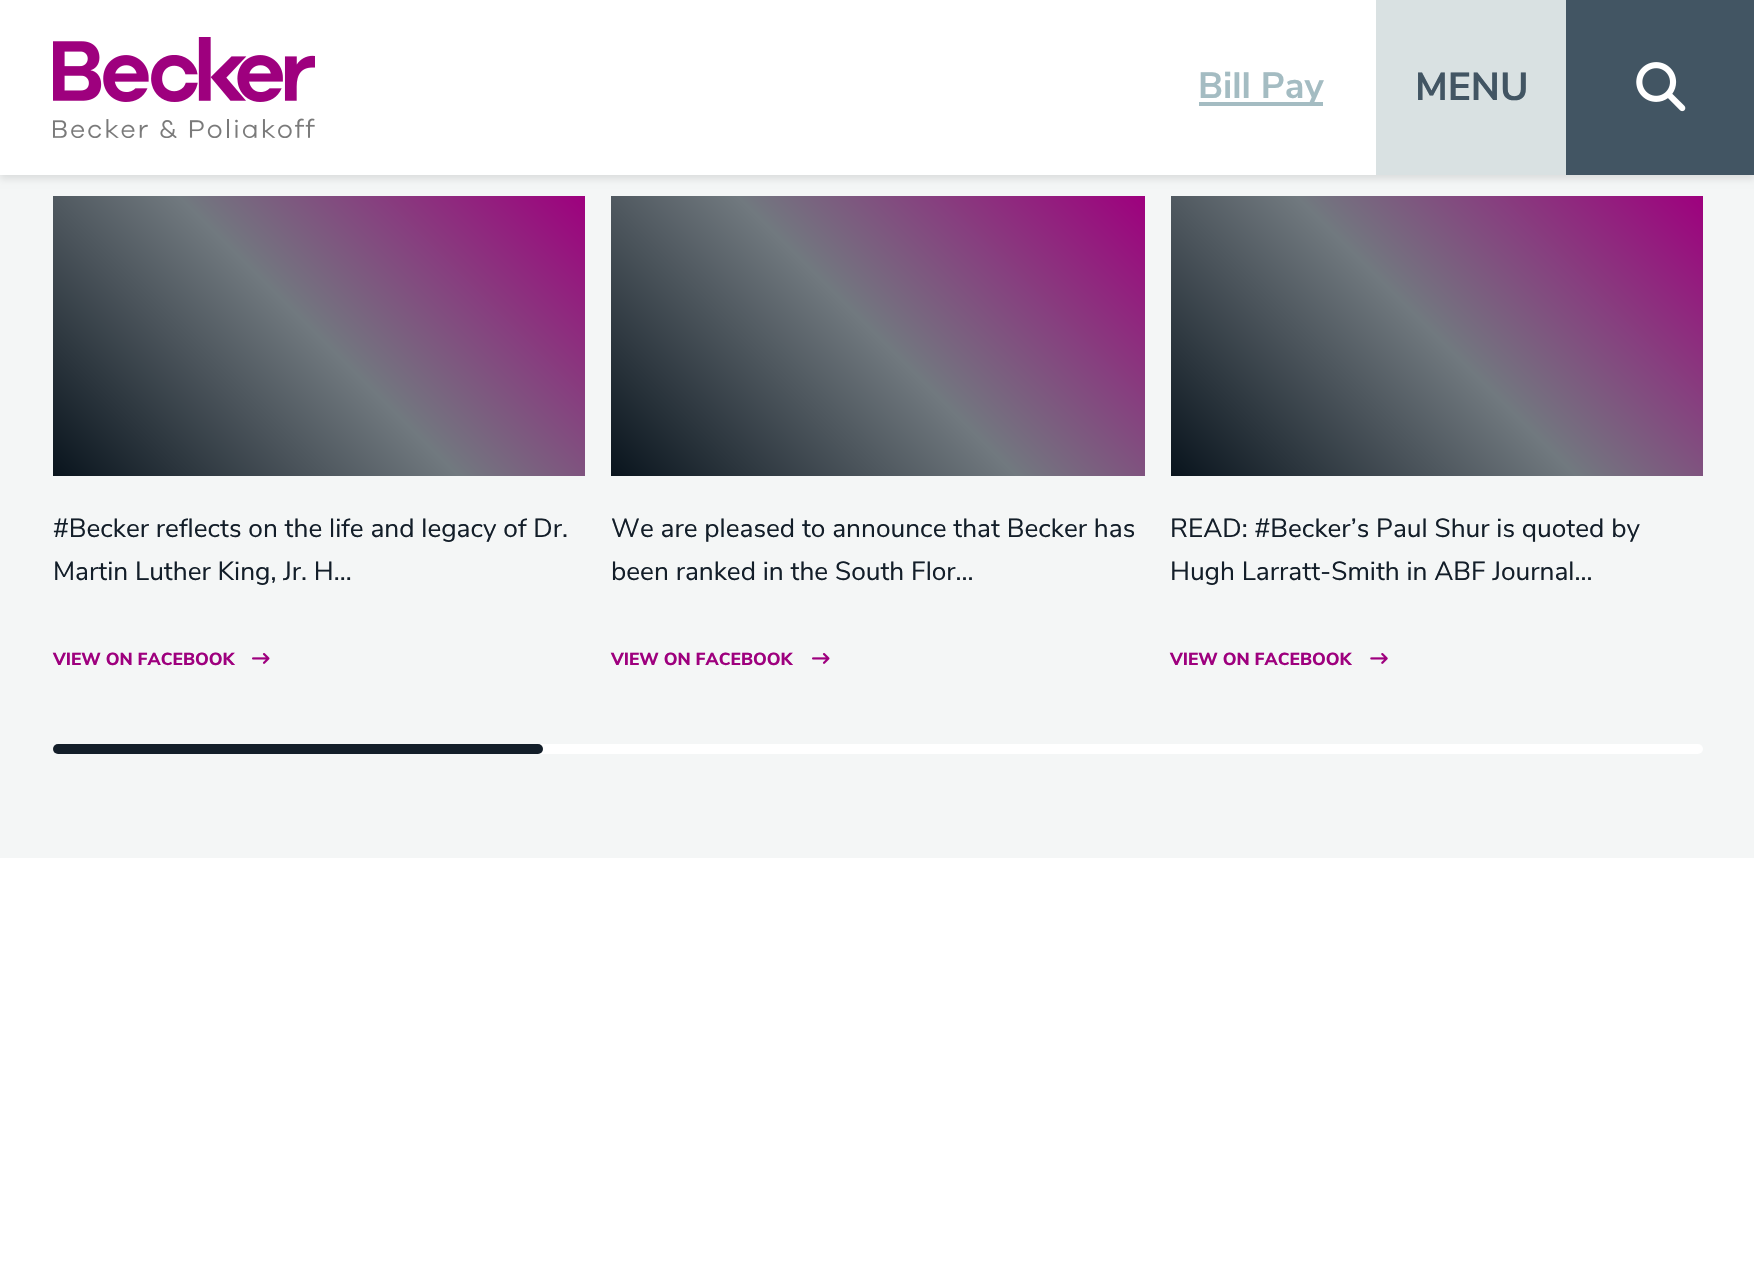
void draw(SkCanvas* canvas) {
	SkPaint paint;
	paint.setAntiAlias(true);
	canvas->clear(0xffffffff);
	paint.setColor(0xfff4f6f6);
	canvas->drawRect(SkRect::MakeXYWH(0, 175, 1754, 683), paint);
	paint.setColor(0x1a000000);
	paint.setMaskFilter(SkMaskFilter::MakeBlur(kNormal_SkBlurStyle, 3.5));
	canvas->drawRect(SkRect::MakeXYWH(0, 4, 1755, 175), paint);
	paint.setMaskFilter(nullptr);
	paint.setColor(0xffffffff);
	canvas->drawRect(SkRect::MakeXYWH(0, 0, 1376, 175), paint);
	canvas->drawImageRect(SkImages::DeferredFromEncodedData(SkData::MakeFromFileName("img1.png")), SkRect::MakeXYWH(53, 37, 262, 101), SkSamplingOptions());
	paint.setColor(0xffa4bcc2);
	canvas->drawRect(SkRect::MakeXYWH(1199, 102, 124, 4), paint);
	SkFont f1(fontMgr->matchFamilyStyle("Nunito Sans", SkFontStyle::Bold()), 36.5);
	f1.setSubpixel(true);
	canvas->drawString("Bill Pay", 1198, 98, f1, paint);
	paint.setColor(0xffd9e1e2);
	canvas->drawRect(SkRect::MakeXYWH(1376, 0, 190, 175), paint);
	SkFont f2(fontMgr->matchFamilyStyle("Nunito Sans", SkFontStyle::Bold()), 39);
	f2.setSubpixel(true);
	paint.setColor(0xff425563);
	canvas->drawString("MENU", 1415, 100, f2, paint);
	canvas->drawRect(SkRect::MakeXYWH(1566, 0, 188, 175), paint);
	canvas->drawImageRect(SkImages::DeferredFromEncodedData(SkData::MakeFromFileName("img2.png")), SkRect::MakeXYWH(1636, 62, 50, 50), SkSamplingOptions());
	{
		const SkColor colors[] = {0xff09141d, 0xff71797f, 0xff9e007e};
		const float stops[] = {0, 0.5, 1};
		const SkPoint ends[] = {{116, 539}, {522, 133}};
		paint.setShader(SkGradientShader::MakeLinear(ends, colors, stops, 3, SkTileMode::kClamp));
		paint.setAlpha(255);
	}
	canvas->drawRect(SkRect::MakeXYWH(53, 196, 532, 280), paint);
	SkFont f3(fontMgr->matchFamilyStyle("Nunito Sans", SkFontStyle::Normal()), 26.25);
	f3.setSubpixel(true);
	paint.setShader(nullptr);
	paint.setColor(0xff131e29);
	canvas->drawString("#Becker reflects on the life and legacy of Dr.", 53, 537, f3, paint);
	canvas->drawString("Martin Luther King, Jr. H...", 53, 580, f3, paint);
	SkFont f4(fontMgr->matchFamilyStyle("Nunito Sans", SkFontStyle(800, SkFontStyle::kNormal_Width, SkFontStyle::kUpright_Slant)), 17.5);
	f4.setSubpixel(true);
	paint.setColor(0xff9e007e);
	canvas->drawString("VIEW ON FACEBOOK", 53, 665, f4, paint);
	canvas->drawImageRect(SkImages::DeferredFromEncodedData(SkData::MakeFromFileName("img3.png")), SkRect::MakeXYWH(252, 653, 18, 11), SkSamplingOptions());
	{
		const SkColor colors[] = {0xff09141d, 0xff71797f, 0xff9e007e};
		const float stops[] = {0, 0.5, 1};
		const SkPoint ends[] = {{674, 539}, {1081, 133}};
		paint.setShader(SkGradientShader::MakeLinear(ends, colors, stops, 3, SkTileMode::kClamp));
		paint.setAlpha(255);
	}
	canvas->drawRect(SkRect::MakeXYWH(611, 196, 534, 280), paint);
	paint.setShader(nullptr);
	paint.setColor(0xff131e29);
	canvas->drawString("We are pleased to announce that Becker has", 611, 537, f3, paint);
	canvas->drawString("been ranked in the South Flor...", 611, 580, f3, paint);
	paint.setColor(0xff9e007e);
	canvas->drawString("VIEW ON FACEBOOK", 611, 665, f4, paint);
	canvas->drawImageRect(SkImages::DeferredFromEncodedData(SkData::MakeFromFileName("img3.png")), SkRect::MakeXYWH(812, 653, 18, 11), SkSamplingOptions());
	{
		const SkColor colors[] = {0xff09141d, 0xff71797f, 0xff9e007e};
		const float stops[] = {0, 0.5, 1};
		const SkPoint ends[] = {{1234, 539}, {1640, 133}};
		paint.setShader(SkGradientShader::MakeLinear(ends, colors, stops, 3, SkTileMode::kClamp));
		paint.setAlpha(255);
	}
	canvas->drawRect(SkRect::MakeXYWH(1171, 196, 532, 280), paint);
	paint.setShader(nullptr);
	paint.setColor(0xff131e29);
	canvas->drawString("READ: #Becker’s Paul Shur is quoted by", 1170, 537, f3, paint);
	canvas->drawString("Hugh Larratt-Smith in ABF Journal...", 1170, 580, f3, paint);
	paint.setColor(0xff9e007e);
	canvas->drawString("VIEW ON FACEBOOK", 1170, 665, f4, paint);
	canvas->drawImageRect(SkImages::DeferredFromEncodedData(SkData::MakeFromFileName("img4.png")), SkRect::MakeXYWH(1370, 653, 18, 11), SkSamplingOptions());
	paint.setColor(0xffffffff);
	canvas->drawRoundRect(SkRect::MakeXYWH(53, 744, 1650, 10), 5, 5, paint);
	paint.setColor(0xff131e29);
	canvas->drawRoundRect(SkRect::MakeXYWH(53, 744, 490, 10), 5, 5, paint);
}
